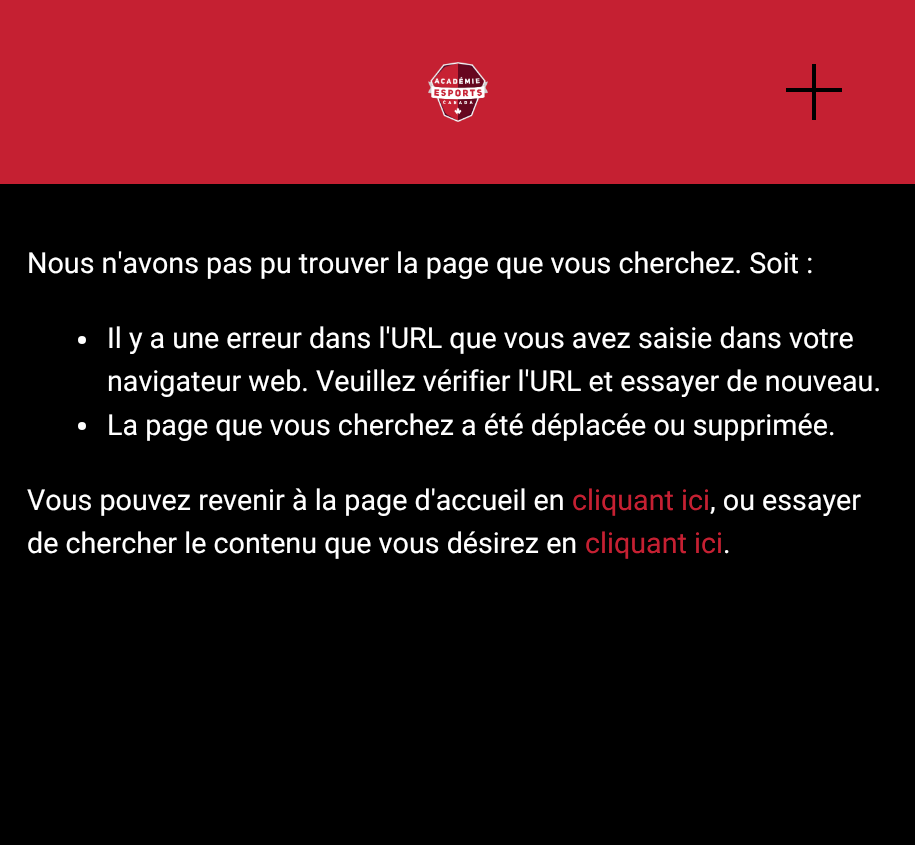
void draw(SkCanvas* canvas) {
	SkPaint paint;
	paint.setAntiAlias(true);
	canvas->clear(0xff000000);
	paint.setColor(0xffc52032);
	canvas->drawRect(SkRect::MakeXYWH(0, 0, 915, 184), paint);
	canvas->drawImageRect(SkImages::DeferredFromEncodedData(SkData::MakeFromFileName("img1.png")), SkRect::MakeXYWH(428, 62, 60, 60), SkSamplingOptions());
	paint.setColor(0xff000000);
	canvas->drawRect(SkRect::MakeXYWH(786, 88, 56, 4), paint);
	canvas->drawRect(SkRect::MakeXYWH(812, 64, 4, 56), paint);
	SkFont f1(fontMgr->matchFamilyStyle("Roboto", SkFontStyle::Normal()), 28.7);
	f1.setSubpixel(true);
	paint.setColor(0xffffffff);
	canvas->drawString("Nous n'avons pas pu trouver la page que vous cherchez. Soit :", 27, 273, f1, paint);
	canvas->drawCircle(82, 340, 4, paint);
	canvas->drawString("Il y a une erreur dans l'URL que vous avez saisie dans votre", 107, 348, f1, paint);
	canvas->drawString("navigateur web. Veuillez vérifier l'URL et essayer de nouveau.", 107, 391, f1, paint);
	canvas->drawCircle(82, 426, 4, paint);
	canvas->drawString("La page que vous cherchez a été déplacée ou supprimée.", 107, 435, f1, paint);
	canvas->drawString("Vous pouvez revenir à la page d'accueil en", 27, 510, f1, paint);
	paint.setColor(0xffc62032);
	canvas->drawString("cliquant ici", 572, 510, f1, paint);
	paint.setColor(0xffffffff);
	canvas->drawString(", ou essayer", 710, 510, f1, paint);
	canvas->drawString("de chercher le contenu que vous désirez en", 27, 553, f1, paint);
	paint.setColor(0xffc62032);
	canvas->drawString("cliquant ici", 585, 553, f1, paint);
	paint.setColor(0xffffffff);
	canvas->drawString(".", 723, 553, f1, paint);
}
